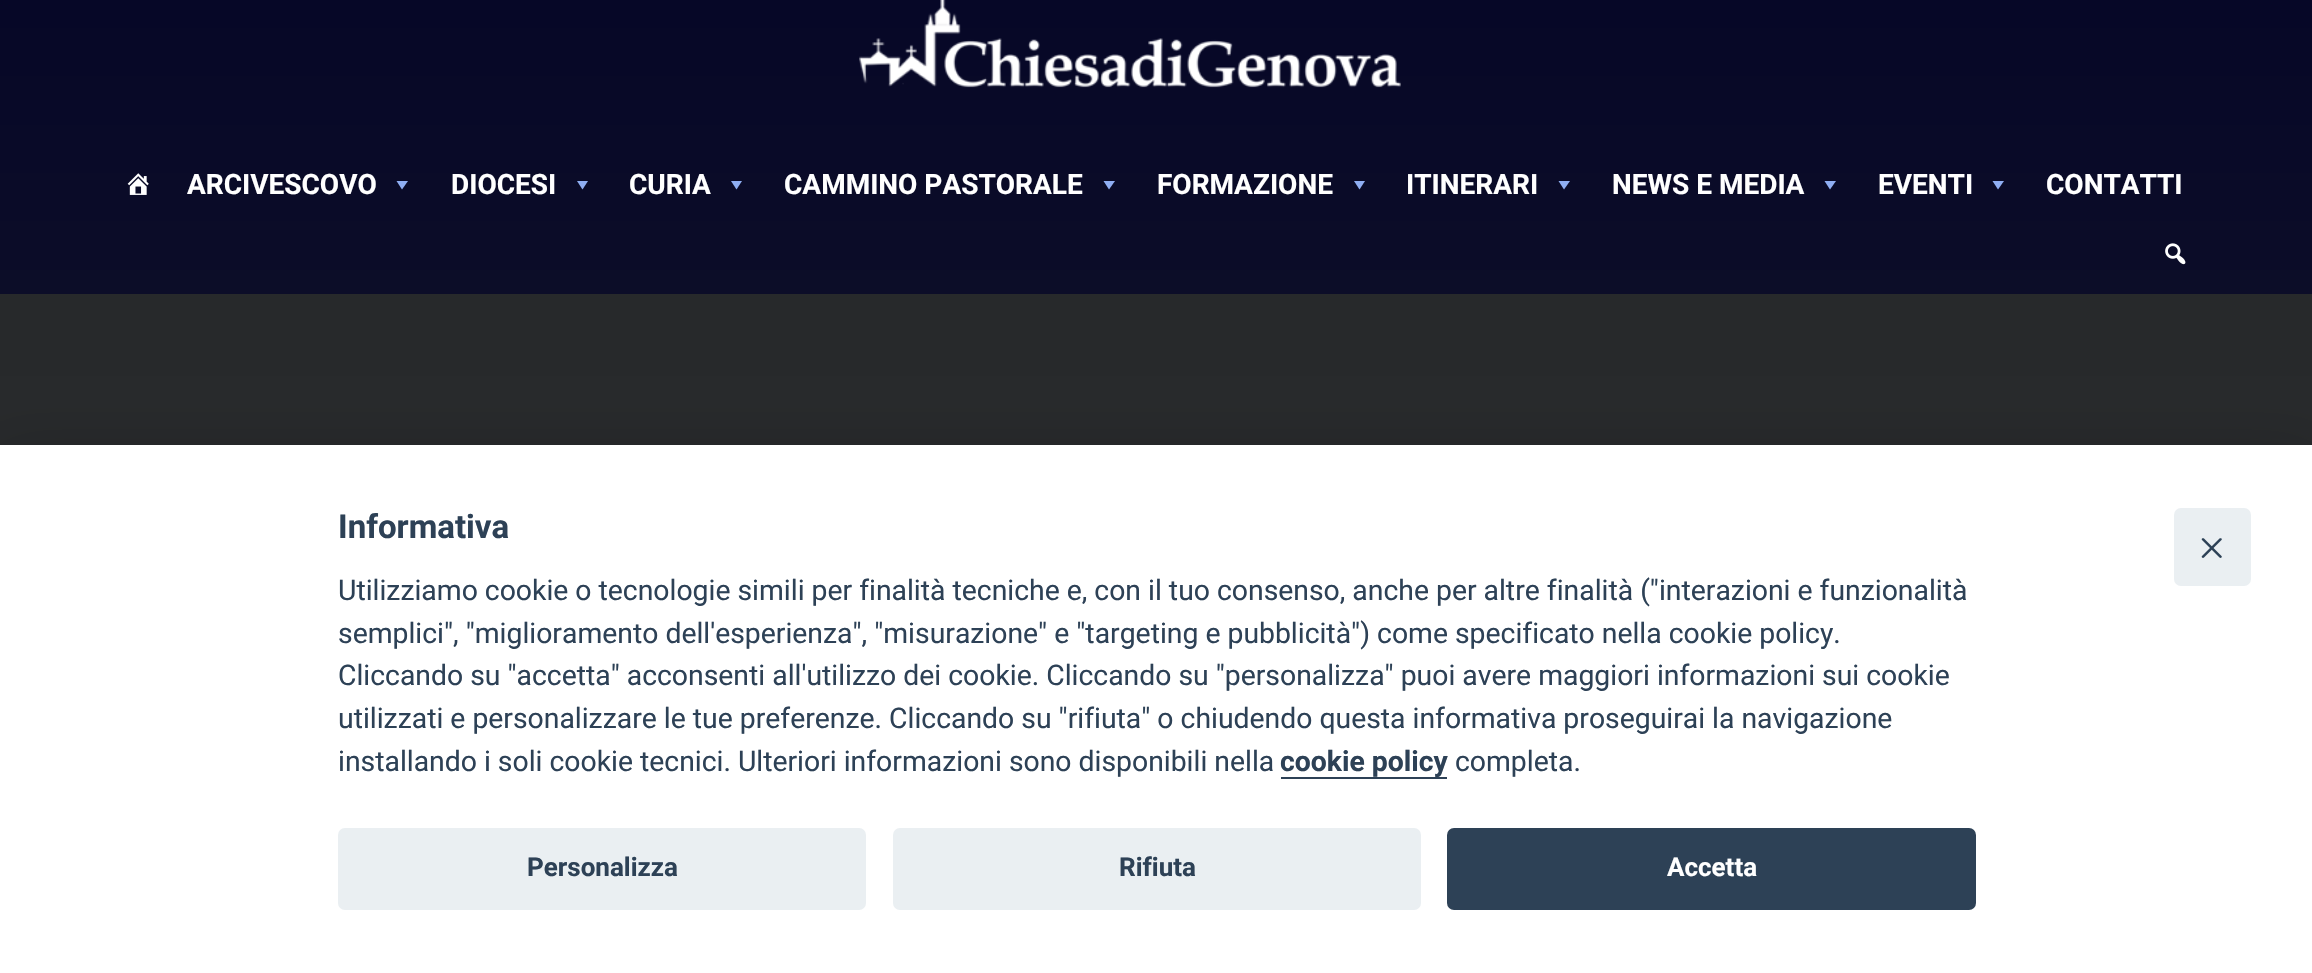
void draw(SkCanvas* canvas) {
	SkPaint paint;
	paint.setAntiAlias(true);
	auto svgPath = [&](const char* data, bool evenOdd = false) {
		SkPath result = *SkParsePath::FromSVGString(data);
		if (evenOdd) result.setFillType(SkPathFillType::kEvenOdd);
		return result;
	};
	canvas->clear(0xffffffff);
	{
		const SkColor colors[] = {0xff040527, 0xff0c0d28};
		const float stops[] = {0, 1};
		const SkPoint ends[] = {{1157, -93}, {1157, 294}};
		paint.setShader(SkGradientShader::MakeLinear(ends, colors, stops, 2, SkTileMode::kClamp));
		paint.setAlpha(255);
	}
	canvas->drawRect(SkRect::MakeXYWH(0, 0, 2312, 294), paint);
	canvas->drawImageRect(SkImages::DeferredFromEncodedData(SkData::MakeFromFileName("img1.png")), SkRect::MakeXYWH(859, 0, 542, 88), SkSamplingOptions());
	canvas->drawImageRect(SkImages::DeferredFromEncodedData(SkData::MakeFromFileName("img2.png")), SkRect::MakeXYWH(127, 173, 22, 22), SkSamplingOptions());
	SkFont f1(fontMgr->matchFamilyStyle("Roboto", SkFontStyle::Bold()), 28);
	f1.setSubpixel(true);
	paint.setShader(nullptr);
	paint.setColor(0xffffffff);
	canvas->drawString("ARCIVESCOVO", 187, 194, f1, paint);
	paint.setColor(0xff8faef3);
	canvas->drawPath(svgPath("M408 181L402 189.5L396.5 181Z"), paint);
	paint.setColor(0xffffffff);
	canvas->drawString("DIOCESI", 451, 194, f1, paint);
	paint.setColor(0xff8faef3);
	canvas->drawPath(svgPath("M588 181L582.5 189.5L577 181Z"), paint);
	paint.setColor(0xffffffff);
	canvas->drawString("CURIA", 629, 194, f1, paint);
	paint.setColor(0xff8faef3);
	canvas->drawPath(svgPath("M742 181L736.5 189.5L731 181Z"), paint);
	paint.setColor(0xffffffff);
	canvas->drawString("CAMMINO PASTORALE", 784, 194, f1, paint);
	paint.setColor(0xff8faef3);
	canvas->drawPath(svgPath("M1115 181L1109 189.5L1103.5 181Z"), paint);
	paint.setColor(0xffffffff);
	canvas->drawString("FORMAZIONE", 1157, 194, f1, paint);
	paint.setColor(0xff8faef3);
	canvas->drawPath(svgPath("M1365 181L1359.5 189.5L1354 181Z"), paint);
	paint.setColor(0xffffffff);
	canvas->drawString("ITINERARI", 1406, 194, f1, paint);
	paint.setColor(0xff8faef3);
	canvas->drawPath(svgPath("M1570 181L1564 189.5L1558.5 181Z"), paint);
	paint.setColor(0xffffffff);
	canvas->drawString("NEWS E MEDIA", 1612, 194, f1, paint);
	paint.setColor(0xff8faef3);
	canvas->drawPath(svgPath("M1836 181L1830 189.5L1824.5 181Z"), paint);
	paint.setColor(0xffffffff);
	canvas->drawString("EVENTI", 1878, 194, f1, paint);
	paint.setColor(0xff8faef3);
	canvas->drawPath(svgPath("M2004 181L1998 189.5L1992.5 181Z"), paint);
	paint.setColor(0xffffffff);
	canvas->drawString("CONTATTI", 2046, 194, f1, paint);
	canvas->drawImageRect(SkImages::DeferredFromEncodedData(SkData::MakeFromFileName("img3.png")), SkRect::MakeXYWH(2165, 243, 21, 22), SkSamplingOptions());
	{
		const SkColor colors[] = {0xff27292b, 0xff27292b, 0xff2a2b2d};
		const float stops[] = {0, 0.7, 1};
		const SkPoint ends[] = {{1157, 294}, {1157, 775}};
		paint.setShader(SkGradientShader::MakeLinear(ends, colors, stops, 3, SkTileMode::kClamp));
		paint.setAlpha(255);
	}
	canvas->drawRect(SkRect::MakeXYWH(0, 294, 2312, 151), paint);
	paint.setShader(nullptr);
	paint.setColor(0x47020203);
	paint.setMaskFilter(SkMaskFilter::MakeBlur(kNormal_SkBlurStyle, 29.5));
	canvas->drawRect(SkRect::MakeXYWH(0, 464, 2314, 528), paint);
	paint.setMaskFilter(nullptr);
	paint.setColor(0xffffffff);
	canvas->drawRect(SkRect::MakeXYWH(0, 445, 2312, 528), paint);
	SkFont f2(fontMgr->matchFamilyStyle("Roboto", SkFontStyle::Bold()), 33);
	f2.setSubpixel(true);
	paint.setColor(0xff2d4156);
	canvas->drawString("Informativa", 338, 538, f2, paint);
	SkFont f3(fontMgr->matchFamilyStyle("Roboto", SkFontStyle::Normal()), 28.35);
	f3.setSubpixel(true);
	canvas->drawString("Utilizziamo cookie o tecnologie simili per finalità tecniche e, con il tuo consenso, anche per altre finalità (\"interazioni e funzionalità", 338, 600, f3, paint);
	canvas->drawString("semplici\", \"miglioramento dell'esperienza\", \"misurazione\" e \"targeting e pubblicità\") come specificato nella cookie policy.", 338, 643, f3, paint);
	canvas->drawString("Cliccando su \"accetta\" acconsenti all'utilizzo dei cookie. Cliccando su \"personalizza\" puoi avere maggiori informazioni sui cookie", 338, 685, f3, paint);
	canvas->drawString("utilizzati e personalizzare le tue preferenze. Cliccando su \"rifiuta\" o chiudendo questa informativa proseguirai la navigazione", 338, 728, f3, paint);
	canvas->drawString("installando i soli cookie tecnici. Ulteriori informazioni sono disponibili nella", 338, 771, f3, paint);
	canvas->drawRect(SkRect::MakeXYWH(1281, 777, 166, 2), paint);
	SkFont f4(fontMgr->matchFamilyStyle("Roboto", SkFontStyle::Bold()), 28.35);
	f4.setSubpixel(true);
	canvas->drawString("cookie policy", 1280, 771, f4, paint);
	canvas->drawString("completa.", 1455, 771, f3, paint);
	paint.setColor(0xffeaeff2);
	canvas->drawRoundRect(SkRect::MakeXYWH(338, 828, 528, 82), 7, 7, paint);
	SkFont f5(fontMgr->matchFamilyStyle("Roboto", SkFontStyle::Bold()), 26);
	f5.setSubpixel(true);
	paint.setColor(0xff2d4156);
	canvas->drawString("Personalizza", 527, 876, f5, paint);
	paint.setColor(0xffeaeff2);
	canvas->drawRoundRect(SkRect::MakeXYWH(893, 828, 528, 82), 7, 7, paint);
	paint.setColor(0xff2d4156);
	canvas->drawString("Rifiuta", 1119, 876, f5, paint);
	canvas->drawRoundRect(SkRect::MakeXYWH(1447, 828, 529, 82), 7, 7, paint);
	paint.setColor(0xffffffff);
	canvas->drawString("Accetta", 1667, 876, f5, paint);
	paint.setColor(0xffeaeff2);
	canvas->drawRoundRect(SkRect::MakeXYWH(2174, 508, 77, 78), 7, 7, paint);
	paint.setColor(0xff2d4156);
	canvas->drawPath(svgPath("M2221.5 538.5C2222 539 2222 539.5 2221.5 540L2204 557.5C2203.5 558 2202.5 558 2202 557.5C2201.5 557 2201.5 556.5 2202 556L2219.5 538.5C2220 538 2221 538 2221.5 538.5Z"), paint);
	canvas->drawPath(svgPath("M2202 538.5C2202.5 538 2203.5 538 2204 538.5L2221.5 556C2222 556.5 2222 557 2221.5 557.5C2221 558 2220 558 2219.5 557.5L2202 540C2201.5 539.5 2201.5 539 2202 538.5Z"), paint);
}
